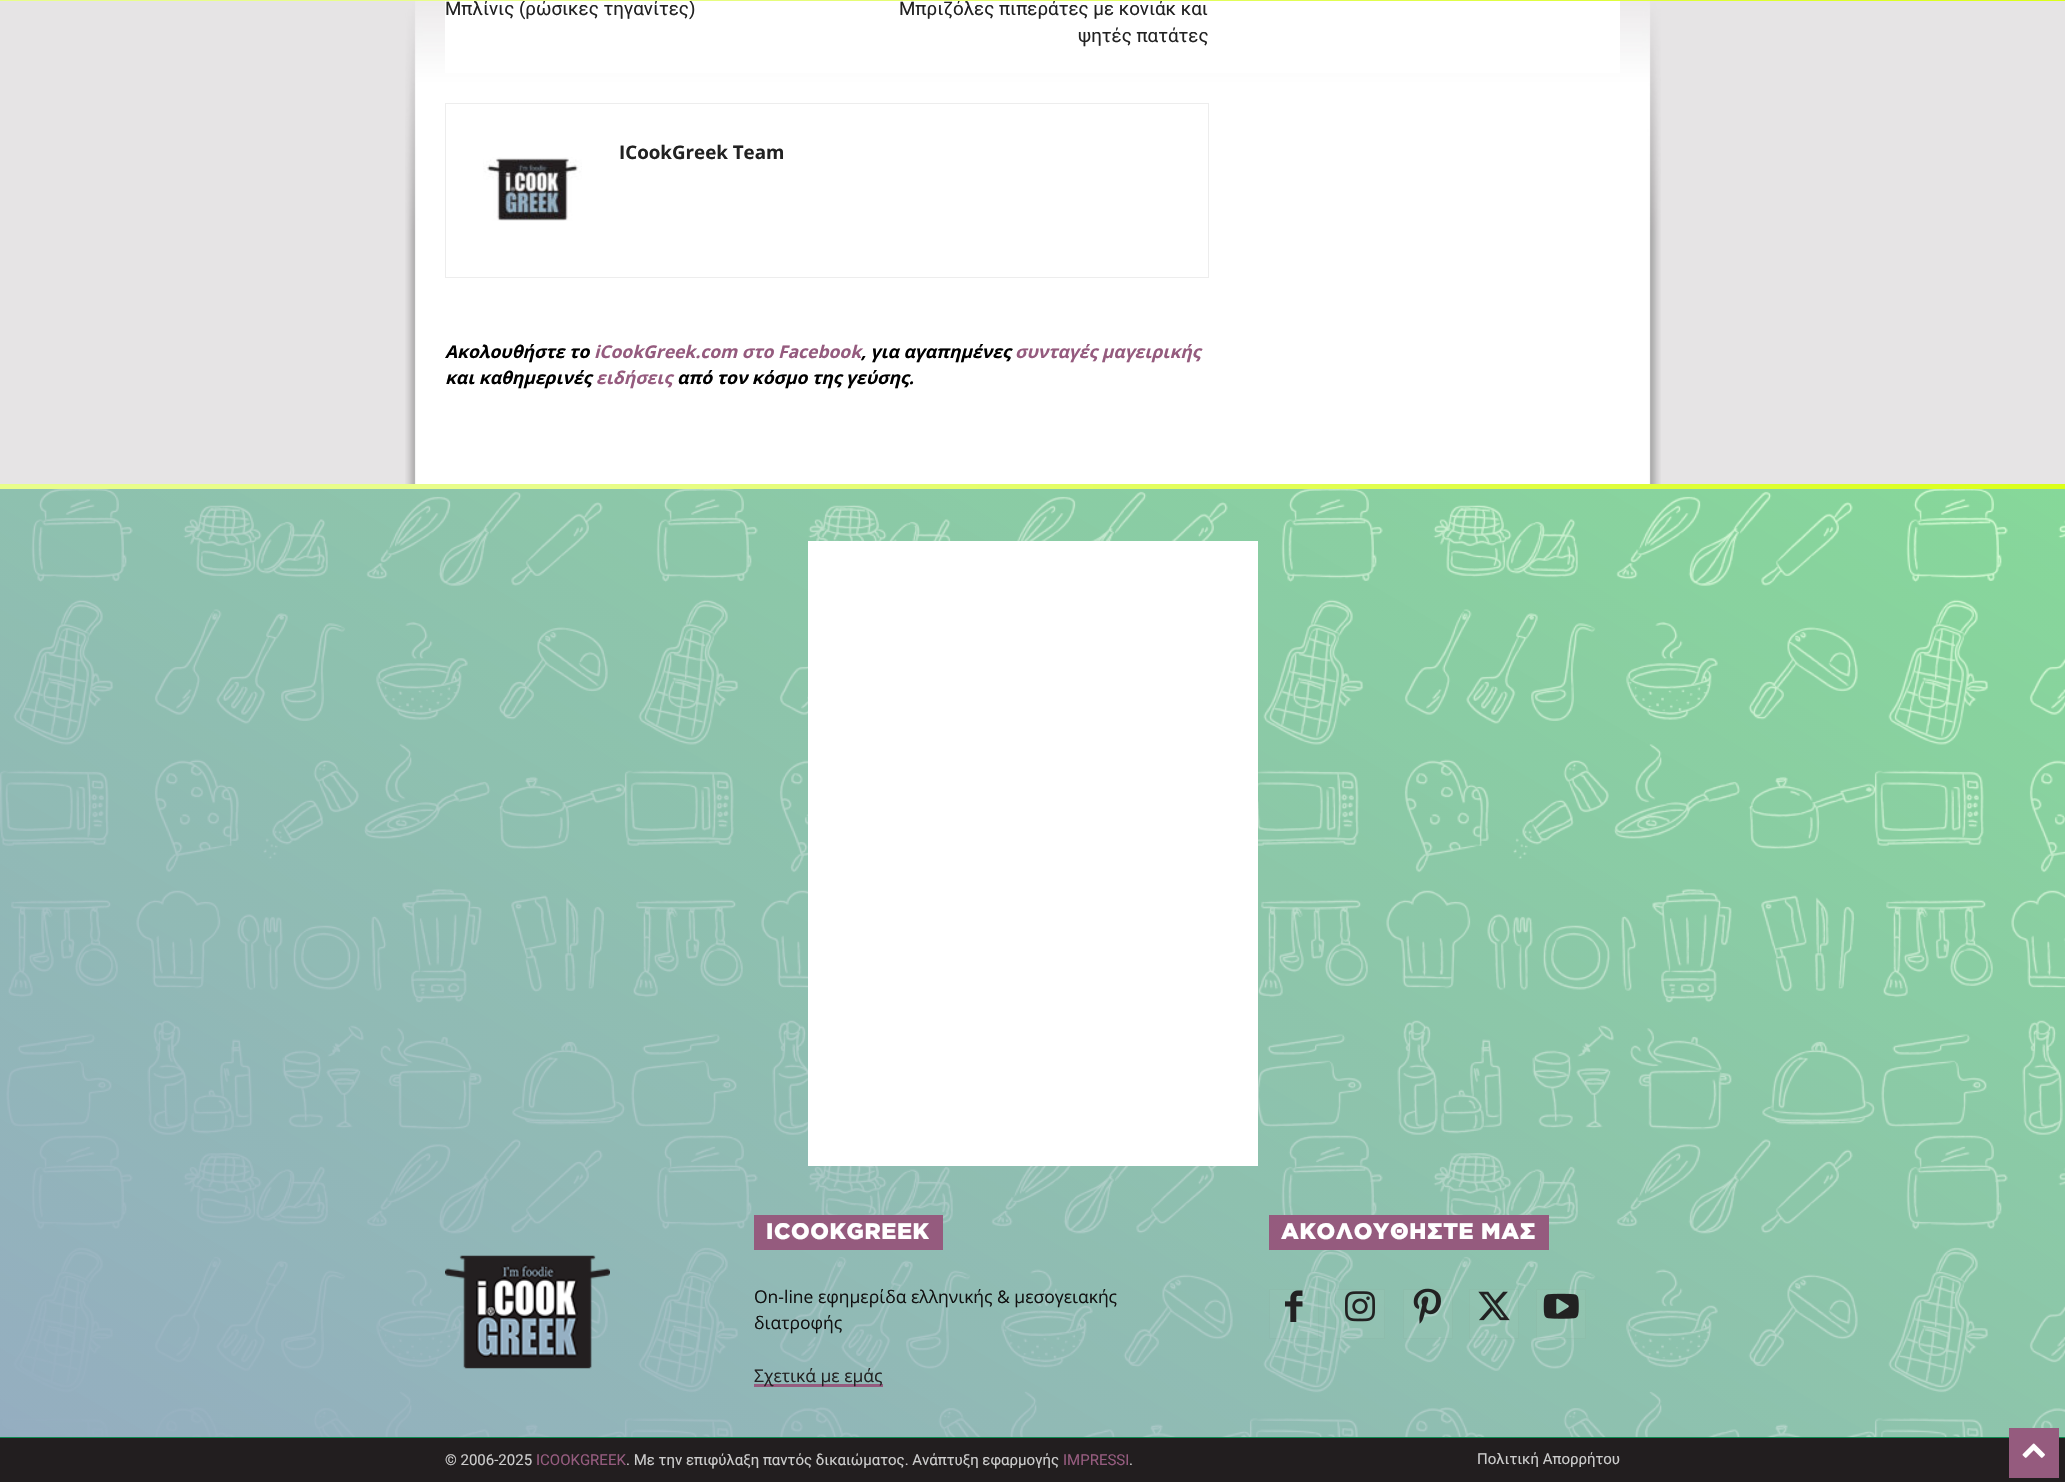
void draw(SkCanvas* canvas) {
	SkPaint paint;
	paint.setAntiAlias(true);
	auto spacedText = [&](const char* s, float x, float y, const SkFont& font, const SkPaint& ink, float letter, float word) {
		std::vector<SkGlyphID> glyphs(font.countText(s, strlen(s), SkTextEncoding::kUTF8));
		std::vector<float> xs(glyphs.size());
		font.textToGlyphs(s, strlen(s), SkTextEncoding::kUTF8, glyphs);
		font.getXPos(glyphs, xs, x);
		float extra = 0;
		for (size_t i = 0; i < glyphs.size(); i++) {
			xs[i] += extra;
			extra += letter + word * (glyphs[i] == font.unicharToGlyph(' '));
		}
		canvas->drawTextBlob(SkTextBlob::MakeFromPosHGlyphs(glyphs, xs, y, font), 0, 0, ink);
	};
	canvas->clear(0xffe6e4e5);
	canvas->drawImageRect(SkImages::DeferredFromEncodedData(SkData::MakeFromFileName("img2.png")), SkRect::MakeXYWH(405, 1, 1256, 483), SkSamplingOptions());
	paint.setColor(0xffffffff);
	canvas->drawRect(SkRect::MakeXYWH(445, 1, 1175, 72), paint);
	SkFont f1(fontMgr->matchFamilyStyle("Roboto", SkFontStyle::Normal()), 18.75);
	f1.setSubpixel(true);
	paint.setColor(0xff222222);
	canvas->drawString("Μπλίνις (ρώσικες τηγανίτες)", 445, 15, f1, paint);
	canvas->drawString("Μπριζόλες πιπεράτες με κονιάκ και", 899, 15, f1, paint);
	{
		const SkColor colors[] = {0xffe8fd8a, 0xffdbff18};
		const float stops[] = {0.28, 1};
		const SkPoint ends[] = {{0, -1.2}, {2065, -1.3}};
		paint.setShader(SkGradientShader::MakeLinear(ends, colors, stops, 2, SkTileMode::kClamp));
		paint.setAlpha(255);
	}
	canvas->drawRect(SkRect::MakeXYWH(0, 0, 2065, 1), paint);
	paint.setShader(nullptr);
	paint.setColor(0xff222222);
	canvas->drawString("ψητές πατάτες", 1078, 42, f1, paint);
	paint.setStroke(true);
	paint.setStrokeWidth(1);
	paint.setColor(0xffededed);
	canvas->drawRect(SkRect::MakeXYWH(445.5, 103.5, 763, 174), paint);
	SkFont f2(fontMgr->matchFamilyStyle("Open Sans", SkFontStyle::Bold()), 18.75);
	f2.setSubpixel(true);
	paint.setStroke(false);
	paint.setColor(0xff222222);
	canvas->drawString("ICookGreek Team", 619, 159, f2, paint);
	canvas->drawImageRect(SkImages::DeferredFromEncodedData(SkData::MakeFromFileName("img1.png")), SkRect::MakeXYWH(483, 157, 99, 64), SkSamplingOptions());
	SkFont f3(fontMgr->matchFamilyStyle("Open Sans", SkFontStyle::BoldItalic()), 17.5);
	f3.setSubpixel(true);
	paint.setColor(0xff000000);
	canvas->drawString("Ακολουθήστε το", 445, 358, f3, paint);
	paint.setColor(0xff955b7e);
	canvas->drawString("iCookGreek.com στο Facebook", 594, 358, f3, paint);
	paint.setColor(0xff000000);
	canvas->drawString(", για αγαπημένες", 861, 358, f3, paint);
	paint.setColor(0xff955b7e);
	canvas->drawString("συνταγές μαγειρικής", 1015, 358, f3, paint);
	paint.setColor(0xff000000);
	canvas->drawString("και καθημερινές", 445, 384, f3, paint);
	paint.setColor(0xff955b7e);
	canvas->drawString("ειδήσεις", 596, 384, f3, paint);
	paint.setColor(0xff000000);
	canvas->drawString("από τον κόσμο της γεύσης.", 677, 384, f3, paint);
	paint.setColor(0xff0c8b50);
	canvas->drawRect(SkRect::MakeXYWH(0, 489, 2065, 949), paint);
	canvas->drawImageRect(SkImages::DeferredFromEncodedData(SkData::MakeFromFileName("img3.png")), SkRect::MakeXYWH(0, 489, 2065, 948), SkSamplingOptions());
	{
		const SkColor colors[] = {0xffe8fd8a, 0xffdbff18};
		const float stops[] = {0.28, 1};
		const SkPoint ends[] = {{0, 486}, {2065, 486}};
		paint.setShader(SkGradientShader::MakeLinear(ends, colors, stops, 2, SkTileMode::kClamp));
		paint.setAlpha(255);
	}
	canvas->drawRect(SkRect::MakeXYWH(0, 484, 2065, 5), paint);
	paint.setShader(nullptr);
	paint.setColor(0xffffffff);
	canvas->drawRect(SkRect::MakeXYWH(808, 541, 450, 625), paint);
	paint.setColor(0xff955b7e);
	canvas->drawRect(SkRect::MakeXYWH(754, 1215, 189, 35), paint);
	SkFont f4(fontMgr->matchFamilyStyle("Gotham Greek", SkFontStyle(900, SkFontStyle::kNormal_Width, SkFontStyle::kUpright_Slant)), 22.5);
	f4.setSubpixel(true);
	paint.setColor(0xffffffff);
	spacedText("ICOOKGREEK", 766, 1239, f4, paint, 0.6, 0);
	SkFont f5(fontMgr->matchFamilyStyle("Open Sans", SkFontStyle::Normal()), 17.5);
	f5.setSubpixel(true);
	paint.setColor(0xff111111);
	canvas->drawString("On-line εφημερίδα ελληνικής & μεσογειακής", 754, 1303, f5, paint);
	canvas->drawString("διατροφής", 754, 1329, f5, paint);
	paint.setColor(0xff955b7e);
	canvas->drawRect(SkRect::MakeXYWH(754, 1384, 129, 3), paint);
	paint.setColor(0xff222222);
	canvas->drawString("Σχετικά με εμάς", 754, 1382, f5, paint);
	paint.setColor(0xff955b7e);
	canvas->drawRect(SkRect::MakeXYWH(1269, 1215, 280, 35), paint);
	paint.setColor(0xffffffff);
	spacedText("ΑΚΟΛΟΥΘΗΣΤΕ ΜΑΣ", 1281, 1239, f4, paint, 0.6, 0);
	paint.setColor(0x08ffffff);
	canvas->drawRect(SkRect::MakeXYWH(1269, 1289, 50, 50), paint);
	canvas->drawImageRect(SkImages::DeferredFromEncodedData(SkData::MakeFromFileName("img4.png")), SkRect::MakeXYWH(1285, 1290, 18, 32), SkSamplingOptions());
	paint.setStroke(true);
	paint.setColor(0x08222222);
	canvas->drawRect(SkRect::MakeXYWH(1269.5, 1289.5, 49, 49), paint);
	paint.setStroke(false);
	paint.setColor(0x08ffffff);
	canvas->drawRect(SkRect::MakeXYWH(1335, 1289, 50, 50), paint);
	canvas->drawImageRect(SkImages::DeferredFromEncodedData(SkData::MakeFromFileName("img5.png")), SkRect::MakeXYWH(1345, 1291, 30, 31), SkSamplingOptions());
	paint.setStroke(true);
	paint.setColor(0x08222222);
	canvas->drawRect(SkRect::MakeXYWH(1335.5, 1289.5, 49, 49), paint);
	paint.setStroke(false);
	paint.setColor(0x08ffffff);
	canvas->drawRect(SkRect::MakeXYWH(1403, 1289, 50, 50), paint);
	canvas->drawImageRect(SkImages::DeferredFromEncodedData(SkData::MakeFromFileName("img6.png")), SkRect::MakeXYWH(1413, 1288, 28, 36), SkSamplingOptions());
	paint.setStroke(true);
	paint.setColor(0x08222222);
	canvas->drawRect(SkRect::MakeXYWH(1403.5, 1289.5, 49, 49), paint);
	paint.setStroke(false);
	paint.setColor(0x08ffffff);
	canvas->drawRect(SkRect::MakeXYWH(1469, 1289, 50, 50), paint);
	canvas->drawImageRect(SkImages::DeferredFromEncodedData(SkData::MakeFromFileName("img7.png")), SkRect::MakeXYWH(1478, 1291, 32, 30), SkSamplingOptions());
	paint.setStroke(true);
	paint.setColor(0x08222222);
	canvas->drawRect(SkRect::MakeXYWH(1469.5, 1289.5, 49, 49), paint);
	paint.setStroke(false);
	paint.setColor(0x08ffffff);
	canvas->drawRect(SkRect::MakeXYWH(1536, 1289, 50, 50), paint);
	canvas->drawImageRect(SkImages::DeferredFromEncodedData(SkData::MakeFromFileName("img8.png")), SkRect::MakeXYWH(1543, 1293, 36, 26), SkSamplingOptions());
	paint.setStroke(true);
	paint.setColor(0x08222222);
	canvas->drawRect(SkRect::MakeXYWH(1536.5, 1289.5, 49, 49), paint);
	canvas->drawImageRect(SkImages::DeferredFromEncodedData(SkData::MakeFromFileName("img9.png")), SkRect::MakeXYWH(445, 1255, 165, 114), SkSamplingOptions());
	paint.setStroke(false);
	paint.setColor(0xff221e1f);
	canvas->drawRect(SkRect::MakeXYWH(0, 1438, 2065, 44), paint);
	SkFont f6(fontMgr->matchFamilyStyle("Roboto", SkFontStyle::Normal()), 15);
	f6.setSubpixel(true);
	paint.setColor(0xffcccccc);
	canvas->drawString("© 2006-2025", 445, 1465, f6, paint);
	paint.setColor(0xff955b7e);
	canvas->drawString("ICOOKGREEK", 536, 1465, f6, paint);
	paint.setColor(0xffcccccc);
	canvas->drawString(". Με την επιφύλαξη παντός δικαιώματος. Ανάπτυξη εφαρμογής", 626, 1465, f6, paint);
	paint.setColor(0xff955b7e);
	canvas->drawString("IMPRESSI", 1063, 1465, f6, paint);
	paint.setColor(0xffcccccc);
	canvas->drawString(".", 1129, 1465, f6, paint);
	canvas->drawString("Πολιτική Απορρήτου", 1477, 1464, f6, paint);
	paint.setColor(0xff955b7e);
	canvas->drawRect(SkRect::MakeXYWH(2009, 1428, 50, 50), paint);
	canvas->drawImageRect(SkImages::DeferredFromEncodedData(SkData::MakeFromFileName("img10.png")), SkRect::MakeXYWH(2022, 1443, 23, 15), SkSamplingOptions());
}
